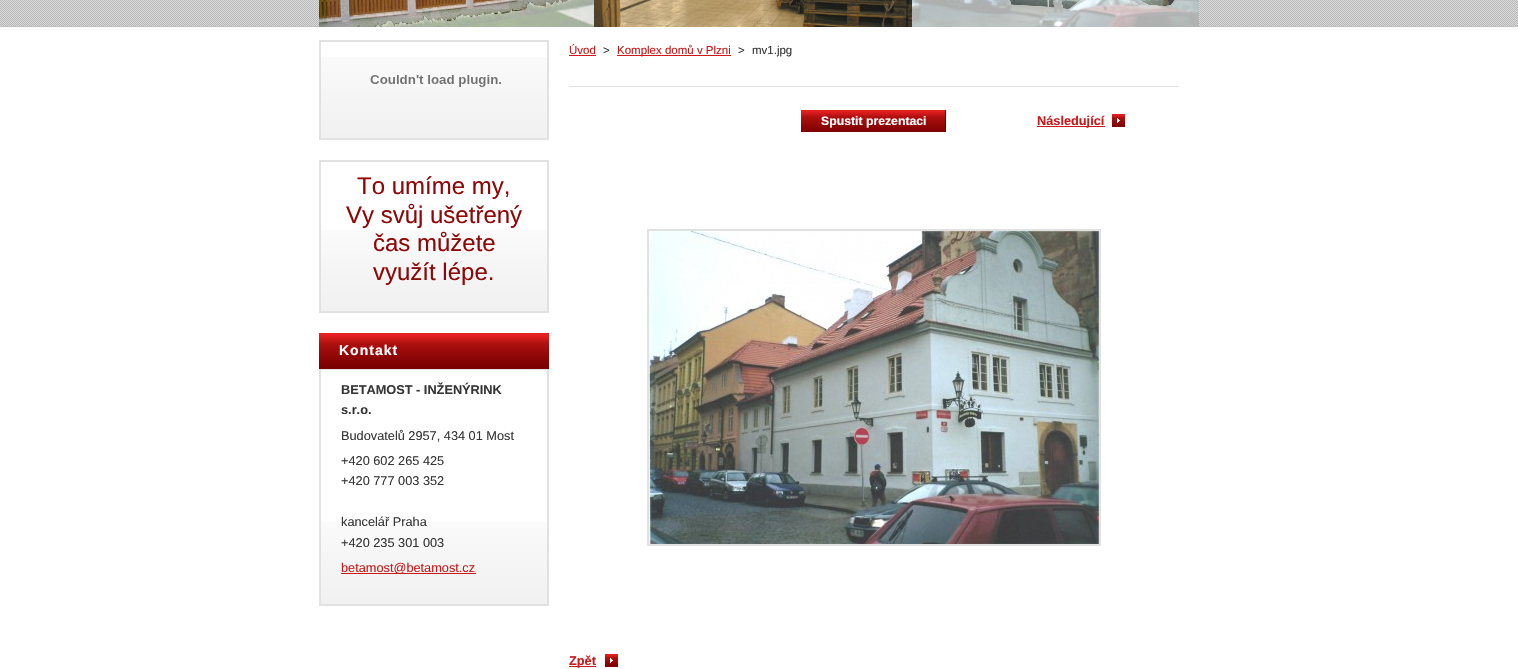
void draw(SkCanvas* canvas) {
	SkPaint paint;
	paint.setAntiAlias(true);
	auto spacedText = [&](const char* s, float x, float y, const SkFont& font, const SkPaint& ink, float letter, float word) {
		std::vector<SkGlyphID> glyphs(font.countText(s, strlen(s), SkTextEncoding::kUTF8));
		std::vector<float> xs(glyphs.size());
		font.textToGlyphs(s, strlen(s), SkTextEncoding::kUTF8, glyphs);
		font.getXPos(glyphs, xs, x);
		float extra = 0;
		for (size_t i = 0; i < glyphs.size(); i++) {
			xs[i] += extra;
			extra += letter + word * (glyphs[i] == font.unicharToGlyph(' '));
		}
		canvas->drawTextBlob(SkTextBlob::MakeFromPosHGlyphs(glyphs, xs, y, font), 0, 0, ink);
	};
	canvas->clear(0xffffffff);
	canvas->drawImageRect(SkImages::DeferredFromEncodedData(SkData::MakeFromFileName("img1.png")), SkRect::MakeXYWH(0, 0, 1518, 27), SkSamplingOptions());
	canvas->drawImageRect(SkImages::DeferredFromEncodedData(SkData::MakeFromFileName("img2.png")), SkRect::MakeXYWH(319, 0, 880, 27), SkSamplingOptions());
	canvas->drawImageRect(SkImages::DeferredFromEncodedData(SkData::MakeFromFileName("img3.png")), SkRect::MakeXYWH(321, 57, 226, 81), SkSamplingOptions());
	paint.setStroke(true);
	paint.setStrokeWidth(2);
	paint.setColor(0xffe1e1e1);
	canvas->drawRect(SkRect::MakeXYWH(320, 41, 228, 98), paint);
	canvas->drawImageRect(SkImages::DeferredFromEncodedData(SkData::MakeFromFileName("img4.png")), SkRect::MakeXYWH(370, 75, 131, 12), SkSamplingOptions());
	canvas->drawImageRect(SkImages::DeferredFromEncodedData(SkData::MakeFromFileName("img5.png")), SkRect::MakeXYWH(321, 230, 226, 81), SkSamplingOptions());
	canvas->drawRect(SkRect::MakeXYWH(320, 161, 228, 151), paint);
	SkFont f1(fontMgr->matchFamilyStyle("Liberation Sans", SkFontStyle::Normal()), 24);
	f1.setSubpixel(true);
	paint.setStroke(false);
	paint.setColor(0xff900707);
	canvas->drawString("To umíme my,", 357, 194, f1, paint);
	canvas->drawString("Vy svůj ušetřený", 346, 223, f1, paint);
	canvas->drawString("čas můžete", 373, 251, f1, paint);
	canvas->drawString("využít lépe.", 373, 280, f1, paint);
	canvas->drawImageRect(SkImages::DeferredFromEncodedData(SkData::MakeFromFileName("img6.png")), SkRect::MakeXYWH(321, 522, 226, 82), SkSamplingOptions());
	paint.setColor(0xffe52020);
	canvas->drawRect(SkRect::MakeXYWH(319, 333, 230, 3), paint);
	canvas->drawImageRect(SkImages::DeferredFromEncodedData(SkData::MakeFromFileName("img7.png")), SkRect::MakeXYWH(319, 336, 230, 33), SkSamplingOptions());
	paint.setColor(0xffe1e1e1);
	canvas->drawRect(SkRect::MakeXYWH(319, 369, 230, 1), paint);
	SkFont f2(fontMgr->matchFamilyStyle("Liberation Sans", SkFontStyle::Bold()), 14);
	f2.setSubpixel(true);
	paint.setColor(0xffffffff);
	spacedText("Kontakt", 339, 355, f2, paint, 1, 0);
	paint.setColor(0xffe1e1e1);
	canvas->drawRect(SkRect::MakeXYWH(547, 370, 2, 236), paint);
	canvas->drawRect(SkRect::MakeXYWH(319, 604, 230, 2), paint);
	canvas->drawRect(SkRect::MakeXYWH(319, 370, 2, 236), paint);
	SkFont f3(fontMgr->matchFamilyStyle("Liberation Sans", SkFontStyle::Bold()), 12.75);
	f3.setSubpixel(true);
	paint.setColor(0xff363636);
	canvas->drawString("BETAMOST - INŽENÝRINK", 341, 394, f3, paint);
	canvas->drawString("s.r.o.", 341, 414, f3, paint);
	SkFont f4(fontMgr->matchFamilyStyle("Liberation Sans", SkFontStyle::Normal()), 12.75);
	f4.setSubpixel(true);
	canvas->drawString("Budovatelů 2957, 434 01 Most", 341, 440, f4, paint);
	canvas->drawString("+420 602 265 425", 341, 465, f4, paint);
	canvas->drawString("+420 777 003 352", 341, 485, f4, paint);
	canvas->drawString("kancelář Praha", 341, 526, f4, paint);
	canvas->drawString("+420 235 301 003", 341, 547, f4, paint);
	paint.setColor(0xffca1919);
	canvas->drawRect(SkRect::MakeXYWH(341, 573, 135, 1), paint);
	canvas->drawString("betamost@betamost.cz", 341, 572, f4, paint);
	SkFont f5(fontMgr->matchFamilyStyle("Liberation Sans", SkFontStyle::Normal()), 11.5);
	f5.setSubpixel(true);
	canvas->drawString("Úvod", 569, 54, f5, paint);
	canvas->drawRect(SkRect::MakeXYWH(569, 55, 27, 1), paint);
	paint.setColor(0xff363636);
	canvas->drawString(">", 603, 54, f5, paint);
	paint.setColor(0xffca1919);
	canvas->drawRect(SkRect::MakeXYWH(617, 55, 114, 1), paint);
	canvas->drawString("Komplex domů v Plzni", 617, 54, f5, paint);
	paint.setColor(0xff363636);
	canvas->drawString(">", 738, 54, f5, paint);
	canvas->drawString("mv1.jpg", 752, 54, f5, paint);
	paint.setColor(0xffe1e1e1);
	canvas->drawRect(SkRect::MakeXYWH(569, 86, 610, 1), paint);
	canvas->drawImageRect(SkImages::DeferredFromEncodedData(SkData::MakeFromFileName("img8.png")), SkRect::MakeXYWH(801, 111, 144, 21), SkSamplingOptions());
	SkFont f6(fontMgr->matchFamilyStyle("Liberation Sans", SkFontStyle::Bold()), 12.25);
	f6.setSubpixel(true);
	paint.setColor(0xffffffff);
	canvas->drawString("Spustit prezentaci", 821, 125, f6, paint);
	paint.setColor(0xffe52020);
	canvas->drawRect(SkRect::MakeXYWH(801, 110, 144, 1), paint);
	paint.setColor(0xff610303);
	canvas->drawRect(SkRect::MakeXYWH(945, 110, 1, 22), paint);
	canvas->drawImageRect(SkImages::DeferredFromEncodedData(SkData::MakeFromFileName("img9.png")), SkRect::MakeXYWH(1112, 114, 13, 13), SkSamplingOptions());
	paint.setColor(0xffca1919);
	canvas->drawRect(SkRect::MakeXYWH(1037, 126, 68, 1), paint);
	canvas->drawString("Následující", 1037, 125, f3, paint);
	paint.setStroke(true);
	paint.setColor(0xffe1e1e1);
	canvas->drawRect(SkRect::MakeXYWH(648, 230, 452, 315), paint);
	canvas->drawImageRect(SkImages::DeferredFromEncodedData(SkData::MakeFromFileName("img10.png")), SkRect::MakeXYWH(649, 231, 450, 313), SkSamplingOptions());
	canvas->drawImageRect(SkImages::DeferredFromEncodedData(SkData::MakeFromFileName("img9.png")), SkRect::MakeXYWH(605, 654, 13, 13), SkSamplingOptions());
	paint.setStroke(false);
	paint.setColor(0xffca1919);
	canvas->drawRect(SkRect::MakeXYWH(569, 666, 27, 1), paint);
	canvas->drawString("Zpět", 569, 665, f3, paint);
}
